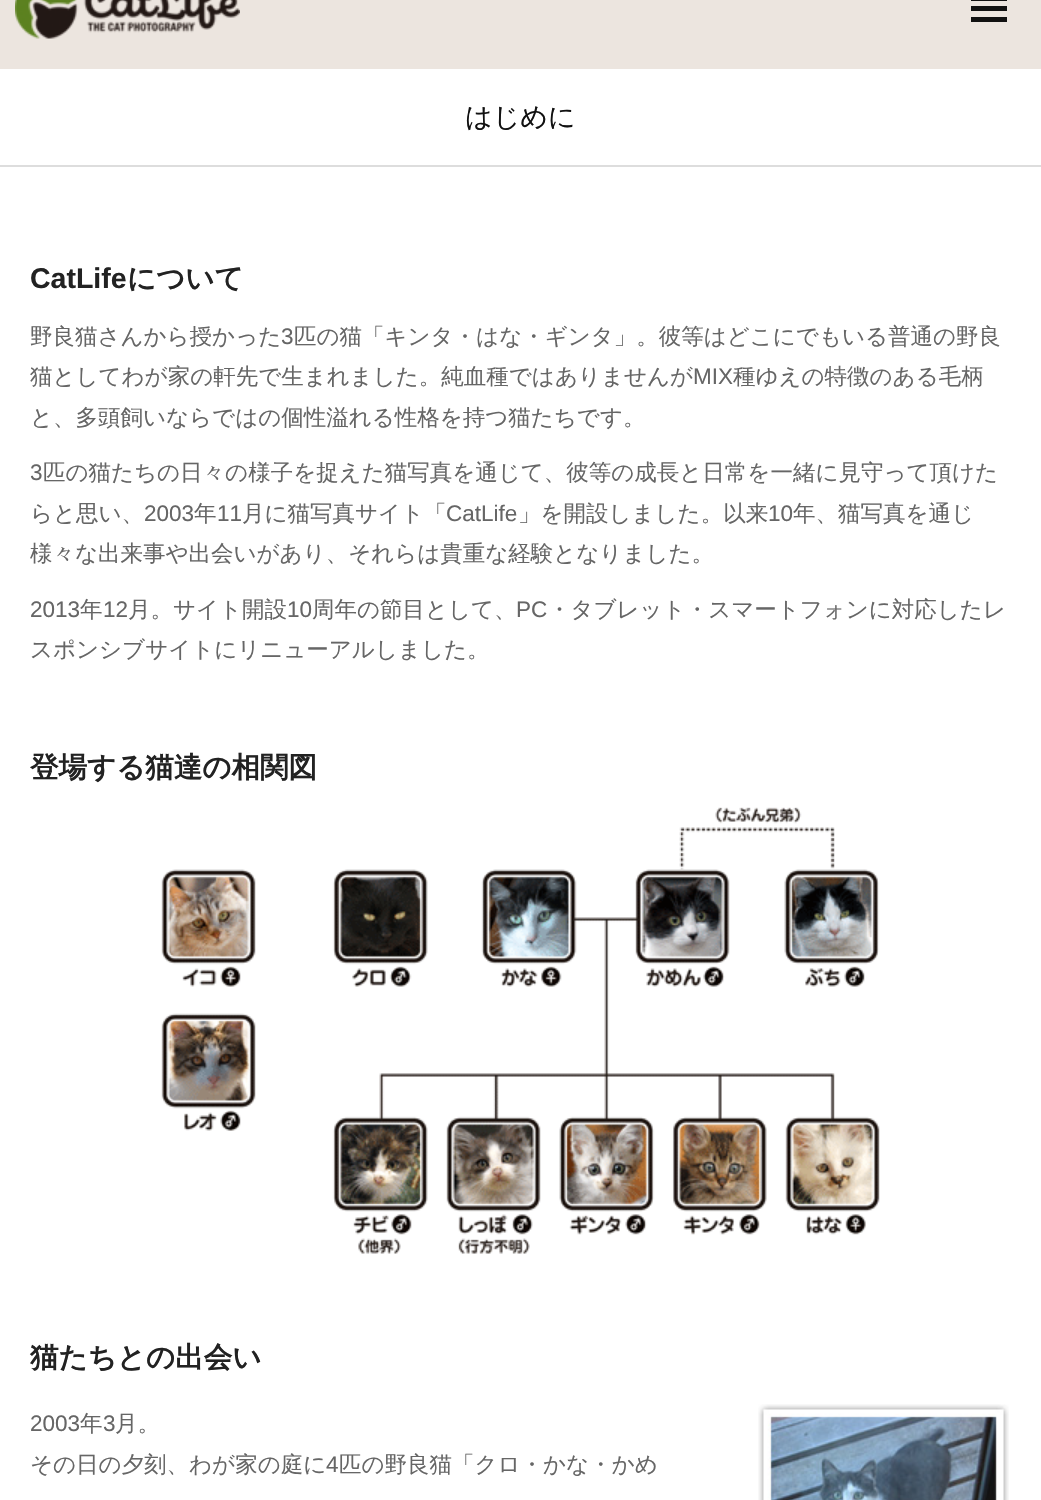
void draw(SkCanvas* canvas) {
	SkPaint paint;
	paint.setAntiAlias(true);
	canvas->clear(0xffffffff);
	paint.setColor(0xffece5df);
	canvas->drawRect(SkRect::MakeXYWH(0, 0, 1041, 69), paint);
	canvas->drawImageRect(SkImages::DeferredFromEncodedData(SkData::MakeFromFileName("img1.png")), SkRect::MakeXYWH(15, 0, 225, 39), SkSamplingOptions());
	paint.setColor(0xff111111);
	canvas->drawRect(SkRect::MakeXYWH(971, 0, 36, 1), paint);
	canvas->drawRect(SkRect::MakeXYWH(971, 6, 36, 5), paint);
	canvas->drawRect(SkRect::MakeXYWH(971, 17, 36, 5), paint);
	paint.setColor(0xffdddddd);
	canvas->drawRect(SkRect::MakeXYWH(0, 165, 1041, 2), paint);
	SkFont f1(fontMgr->matchFamilyStyle("WenQuanYi Zen Hei", SkFontStyle(500, SkFontStyle::kNormal_Width, SkFontStyle::kUpright_Slant)), 27);
	f1.setSubpixel(true);
	paint.setColor(0xff111111);
	canvas->drawString("はじめに", 465, 126, f1, paint);
	SkFont f2(fontMgr->matchFamilyStyle("Liberation Sans", SkFontStyle::Bold()), 28.5);
	f2.setSubpixel(true);
	paint.setColor(0xff222222);
	canvas->drawString("CatLife", 30, 288, f2, paint);
	SkFont f3(fontMgr->matchFamilyStyle("WenQuanYi Zen Hei", SkFontStyle::Bold()), 28.5);
	f3.setSubpixel(true);
	canvas->drawString("について", 127, 288, f3, paint);
	SkFont f4(fontMgr->matchFamilyStyle("WenQuanYi Zen Hei", SkFontStyle(500, SkFontStyle::kNormal_Width, SkFontStyle::kUpright_Slant)), 22.5);
	f4.setSubpixel(true);
	paint.setColor(0xff666666);
	canvas->drawString("野良猫さんから授かった", 30, 344, f4, paint);
	SkFont f5(fontMgr->matchFamilyStyle("Liberation Sans", SkFontStyle::Normal()), 22.5);
	f5.setSubpixel(true);
	canvas->drawString("3", 281, 344, f5, paint);
	canvas->drawString("匹の猫「キンタ・はな・ギンタ」。彼等はどこにでもいる普通の野良", 294, 344, f4, paint);
	canvas->drawString("猫としてわが家の軒先で生まれました。純血種ではありませんが", 30, 384, f4, paint);
	canvas->drawString("MIX", 693, 384, f5, paint);
	canvas->drawString("種ゆえの特徴のある毛柄", 733, 384, f4, paint);
	canvas->drawString("と、多頭飼いならではの個性溢れる性格を持つ猫たちです。", 30, 425, f4, paint);
	canvas->drawString("3", 30, 480, f5, paint);
	canvas->drawString("匹の猫たちの日々の様子を捉えた猫写真を通じて、彼等の成長と日常を一緒に見守って頂けた", 43, 480, f4, paint);
	canvas->drawString("らと思い、", 30, 521, f4, paint);
	canvas->drawString("2003", 144, 521, f5, paint);
	canvas->drawString("年", 194, 521, f4, paint);
	canvas->drawString("11", 217, 521, f5, paint);
	canvas->drawString("月に猫写真サイト「", 242, 521, f4, paint);
	canvas->drawString("CatLife", 446, 521, f5, paint);
	canvas->drawString("」を開設しました。以来", 518, 521, f4, paint);
	canvas->drawString("10", 768, 521, f5, paint);
	canvas->drawString("年、猫写真を通じ", 793, 521, f4, paint);
	canvas->drawString("様々な出来事や出会いがあり、それらは貴重な経験となりました。", 30, 561, f4, paint);
	canvas->drawString("2013", 30, 617, f5, paint);
	canvas->drawString("年", 80, 617, f4, paint);
	canvas->drawString("12", 103, 617, f5, paint);
	canvas->drawString("月。サイト開設", 128, 617, f4, paint);
	canvas->drawString("10", 287, 617, f5, paint);
	canvas->drawString("周年の節目として、", 312, 617, f4, paint);
	canvas->drawString("PC", 516, 617, f5, paint);
	canvas->drawString("・タブレット・スマートフォンに対応したレ", 548, 617, f4, paint);
	canvas->drawString("スポンシブサイトにリニューアルしました。", 30, 657, f4, paint);
	paint.setColor(0xff222222);
	canvas->drawString("登場する猫達の相関図", 30, 777, f3, paint);
	canvas->drawImageRect(SkImages::DeferredFromEncodedData(SkData::MakeFromFileName("img2.png")), SkRect::MakeXYWH(161, 807, 719, 447), SkSamplingOptions());
	canvas->drawString("猫たちとの出会い", 30, 1367, f3, paint);
	paint.setColor(0xff666666);
	canvas->drawString("2003", 30, 1431, f5, paint);
	canvas->drawString("年", 80, 1431, f4, paint);
	canvas->drawString("3", 103, 1431, f5, paint);
	canvas->drawString("月。", 115, 1431, f4, paint);
	canvas->drawImageRect(SkImages::DeferredFromEncodedData(SkData::MakeFromFileName("img3.png")), SkRect::MakeXYWH(758, 1404, 251, 96), SkSamplingOptions());
	canvas->drawString("その日の夕刻、わが家の庭に", 30, 1472, f4, paint);
	canvas->drawString("4", 326, 1472, f5, paint);
	canvas->drawString("匹の野良猫「クロ・かな・かめ", 339, 1472, f4, paint);
}
